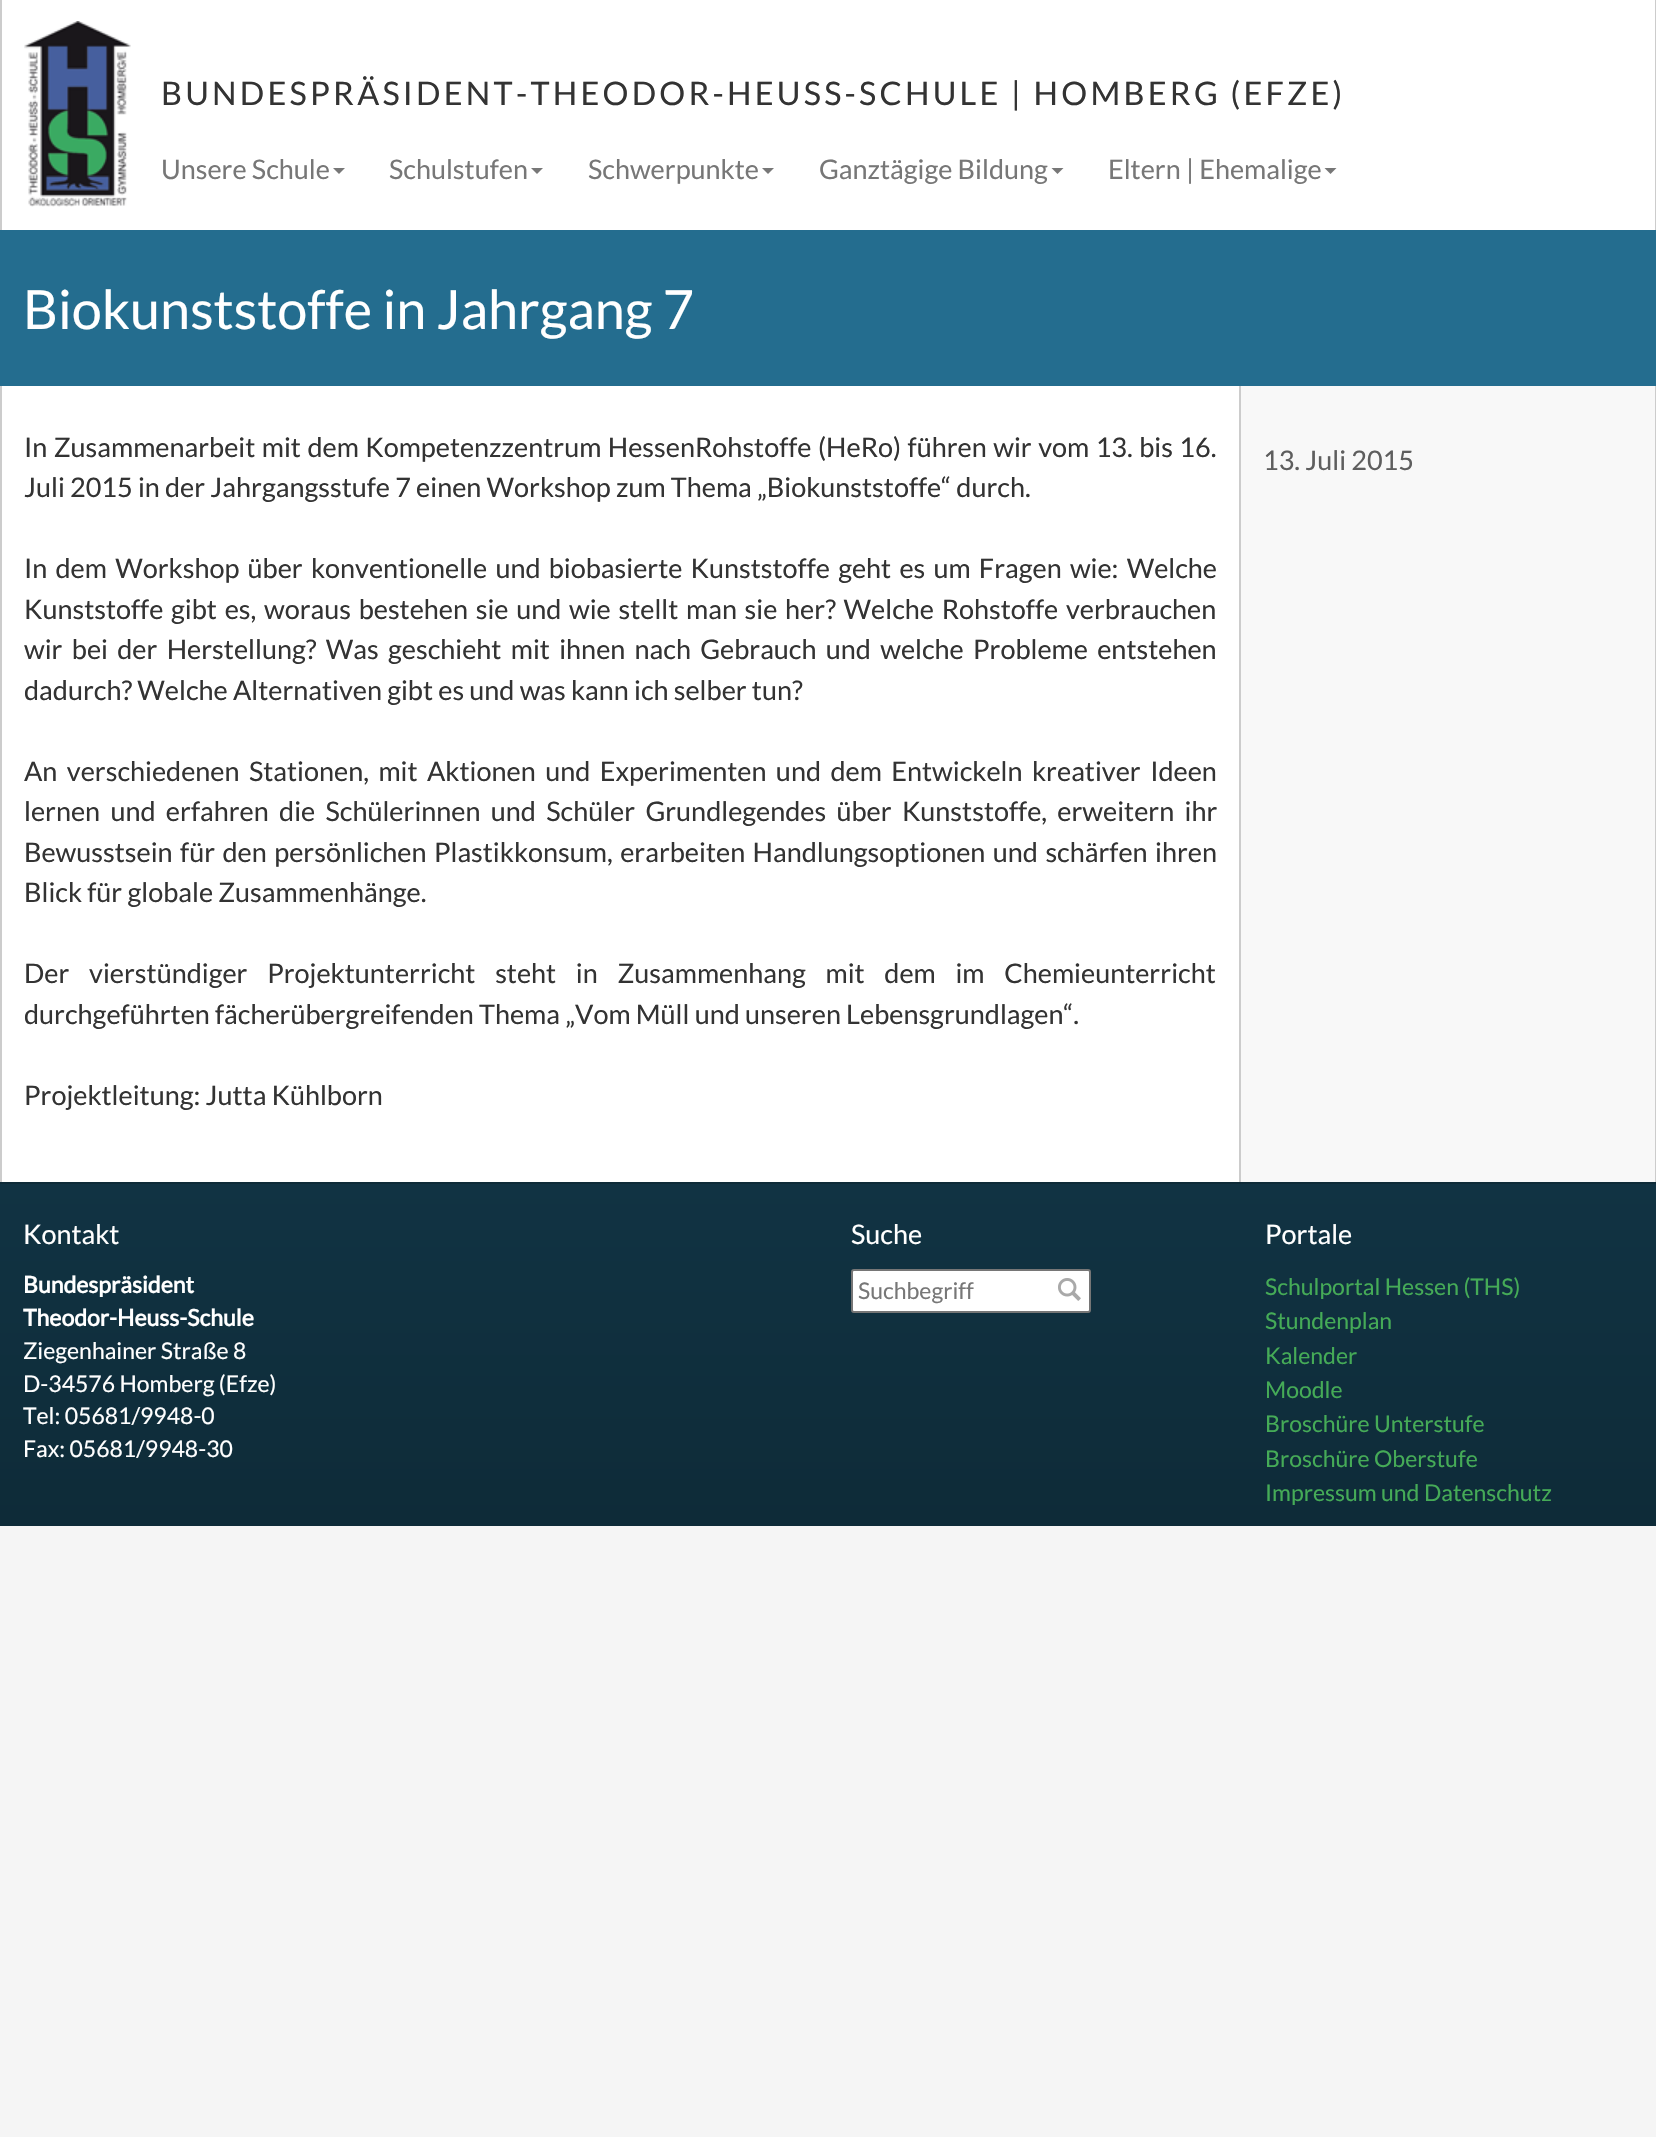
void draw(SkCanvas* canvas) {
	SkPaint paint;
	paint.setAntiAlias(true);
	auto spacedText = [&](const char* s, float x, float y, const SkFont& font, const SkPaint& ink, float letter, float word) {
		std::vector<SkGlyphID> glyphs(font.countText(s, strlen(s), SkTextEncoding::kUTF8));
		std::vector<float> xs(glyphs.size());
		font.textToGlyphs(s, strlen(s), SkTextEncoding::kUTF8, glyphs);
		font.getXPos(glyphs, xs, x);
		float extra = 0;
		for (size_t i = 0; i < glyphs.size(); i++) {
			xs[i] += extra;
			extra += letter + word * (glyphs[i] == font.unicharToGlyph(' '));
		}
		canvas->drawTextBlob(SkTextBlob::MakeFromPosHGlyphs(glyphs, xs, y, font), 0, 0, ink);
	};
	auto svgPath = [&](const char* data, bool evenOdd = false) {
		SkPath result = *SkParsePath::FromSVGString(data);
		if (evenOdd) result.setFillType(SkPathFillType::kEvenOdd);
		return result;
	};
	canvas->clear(0xfff5f5f5);
	paint.setColor(0xffffffff);
	canvas->drawRect(SkRect::MakeXYWH(2, 0, 1653, 230), paint);
	paint.setColor(0xffcccccc);
	canvas->drawRect(SkRect::MakeXYWH(1655, 0, 1, 230), paint);
	canvas->drawRect(SkRect::MakeXYWH(0, 0, 2, 230), paint);
	canvas->drawImageRect(SkImages::DeferredFromEncodedData(SkData::MakeFromFileName("img1.png")), SkRect::MakeXYWH(24, 21, 107, 186), SkSamplingOptions());
	SkFont f1(fontMgr->matchFamilyStyle("Lato", SkFontStyle::Normal()), 32.4);
	f1.setSubpixel(true);
	paint.setColor(0xff333333);
	spacedText("BUNDESPRÄSIDENT-THEODOR-HEUSS-SCHULE | HOMBERG (EFZE)", 161, 105, f1, paint, 3.25, 0);
	SkFont f2(fontMgr->matchFamilyStyle("Lato", SkFontStyle::Normal()), 27);
	f2.setSubpixel(true);
	paint.setColor(0xff777777);
	canvas->drawString("Unsere Schule", 161, 179, f2, paint);
	canvas->drawPath(svgPath("M333 168H345L339 174Z"), paint);
	canvas->drawString("Schulstufen", 389, 179, f2, paint);
	canvas->drawPath(svgPath("M531 168H543L537 174Z"), paint);
	canvas->drawString("Schwerpunkte", 588, 179, f2, paint);
	canvas->drawPath(svgPath("M762 168H774L768 174Z"), paint);
	canvas->drawString("Ganztägige Bildung", 819, 179, f2, paint);
	canvas->drawPath(svgPath("M1051.5 168H1063.5L1057.5 174Z"), paint);
	canvas->drawString("Eltern | Ehemalige", 1108, 179, f2, paint);
	canvas->drawPath(svgPath("M1324.5 168H1336.5L1330.5 174Z"), paint);
	paint.setColor(0xff246d8f);
	canvas->drawRect(SkRect::MakeXYWH(0, 230, 1656, 156), paint);
	SkFont f3(fontMgr->matchFamilyStyle("Lato", SkFontStyle::Normal()), 54);
	f3.setSubpixel(true);
	paint.setColor(0xffffffff);
	canvas->drawString("Biokunststoffe in Jahrgang 7", 23, 329, f3, paint);
	paint.setColor(0xfff8f8f8);
	canvas->drawRect(SkRect::MakeXYWH(1241, 386, 414, 796), paint);
	paint.setColor(0xffcccccc);
	canvas->drawRect(SkRect::MakeXYWH(1655, 386, 1, 796), paint);
	paint.setColor(0xffffffff);
	canvas->drawRect(SkRect::MakeXYWH(2, 386, 1237, 796), paint);
	paint.setColor(0xffcccccc);
	canvas->drawRect(SkRect::MakeXYWH(1239, 386, 2, 796), paint);
	canvas->drawRect(SkRect::MakeXYWH(0, 386, 2, 796), paint);
	paint.setColor(0xff333333);
	spacedText("In Zusammenarbeit mit dem Kompetenzzentrum HessenRohstoffe (HeRo) führen wir vom 13. bis 16.", 24, 457, f2, paint, 0, 1.25);
	canvas->drawString("Juli 2015 in der Jahrgangsstufe 7 einen Workshop zum Thema „Biokunststoffe“ durch.", 24, 497, f2, paint);
	spacedText("In dem Workshop über konventionelle und biobasierte Kunststoffe geht es um Fragen wie: Welche", 24, 578, f2, paint, 0, 3);
	spacedText("Kunststoffe gibt es, woraus bestehen sie und wie stellt man sie her? Welche Rohstoffe verbrauchen", 24, 619, f2, paint, 0, 2.5);
	spacedText("wir bei der Herstellung? Was geschieht mit ihnen nach Gebrauch und welche Probleme entstehen", 24, 659, f2, paint, 0, 4.1);
	canvas->drawString("dadurch? Welche Alternativen gibt es und was kann ich selber tun?", 24, 700, f2, paint);
	spacedText("An verschiedenen Stationen, mit Aktionen und Experimenten und dem Entwickeln kreativer Ideen", 24, 781, f2, paint, 0, 4.25);
	spacedText("lernen und erfahren die Schülerinnen und Schüler Grundlegendes über Kunststoffe, erweitern ihr", 24, 821, f2, paint, 0, 5.1);
	spacedText("Bewusstsein für den persönlichen Plastikkonsum, erarbeiten Handlungsoptionen und schärfen ihren", 24, 862, f2, paint, 0, 2.25);
	canvas->drawString("Blick für globale Zusammenhänge.", 24, 902, f2, paint);
	spacedText("Der vierstündiger Projektunterricht steht in Zusammenhang mit dem im Chemieunterricht", 24, 983, f2, paint, 0, 14.5);
	canvas->drawString("durchgeführten fächerübergreifenden Thema „Vom Müll und unseren Lebensgrundlagen“.", 24, 1024, f2, paint);
	canvas->drawString("Projektleitung: Jutta Kühlborn", 24, 1105, f2, paint);
	paint.setColor(0xff5e5e5e);
	canvas->drawString("13. Juli 2015", 1263, 470, f2, paint);
	{
		const SkColor colors[] = {0xff113343, 0xff0e2b38};
		const float stops[] = {0, 1};
		const SkPoint ends[] = {{828, 841}, {828, 1184}};
		paint.setShader(SkGradientShader::MakeLinear(ends, colors, stops, 2, SkTileMode::kClamp));
		paint.setAlpha(255);
	}
	canvas->drawRect(SkRect::MakeXYWH(0, 1182, 1656, 2), paint);
	{
		const SkColor colors[] = {0xff113343, 0xff0e2b38};
		const float stops[] = {0, 1};
		const SkPoint ends[] = {{828, 1183}, {828, 1526}};
		paint.setShader(SkGradientShader::MakeLinear(ends, colors, stops, 2, SkTileMode::kClamp));
		paint.setAlpha(255);
	}
	canvas->drawRect(SkRect::MakeXYWH(0, 1184, 1656, 342), paint);
	paint.setShader(nullptr);
	paint.setColor(0xffffffff);
	canvas->drawString("Kontakt", 23, 1244, f2, paint);
	SkFont f4(fontMgr->matchFamilyStyle("Lato", SkFontStyle::Bold()), 23);
	f4.setSubpixel(true);
	canvas->drawString("Bundespräsident", 23, 1293, f4, paint);
	canvas->drawString("Theodor-Heuss-Schule", 23, 1326, f4, paint);
	SkFont f5(fontMgr->matchFamilyStyle("Lato", SkFontStyle::Normal()), 23);
	f5.setSubpixel(true);
	canvas->drawString("Ziegenhainer Straße 8", 23, 1359, f5, paint);
	canvas->drawString("D-34576 Homberg (Efze)", 23, 1392, f5, paint);
	canvas->drawString("Tel: 05681/9948-0", 23, 1424, f5, paint);
	canvas->drawString("Fax: 05681/9948-30", 23, 1457, f5, paint);
	canvas->drawString("Suche", 851, 1244, f2, paint);
	canvas->drawRoundRect(SkRect::MakeXYWH(852, 1270, 238, 42), 2, 2, paint);
	paint.setStroke(true);
	paint.setStrokeWidth(2);
	paint.setColor(0xff767676);
	canvas->drawRoundRect(SkRect::MakeXYWH(852, 1270, 238, 42), 2, 2, paint);
	paint.setStroke(false);
	paint.setColor(0xff777777);
	canvas->drawString("Suchbegriff", 858, 1299, f5, paint);
	canvas->drawImageRect(SkImages::DeferredFromEncodedData(SkData::MakeFromFileName("img2.png")), SkRect::MakeXYWH(1058, 1278, 23, 23), SkSamplingOptions());
	paint.setColor(0xffffffff);
	canvas->drawString("Portale", 1265, 1244, f2, paint);
	paint.setColor(0xff45ab57);
	canvas->drawString("Schulportal Hessen (THS)", 1265, 1295, f5, paint);
	canvas->drawString("Stundenplan", 1265, 1329, f5, paint);
	canvas->drawString("Kalender", 1265, 1364, f5, paint);
	canvas->drawString("Moodle", 1265, 1398, f5, paint);
	canvas->drawString("Broschüre Unterstufe", 1265, 1432, f5, paint);
	canvas->drawString("Broschüre Oberstufe", 1265, 1467, f5, paint);
	canvas->drawString("Impressum und Datenschutz", 1265, 1501, f5, paint);
}
